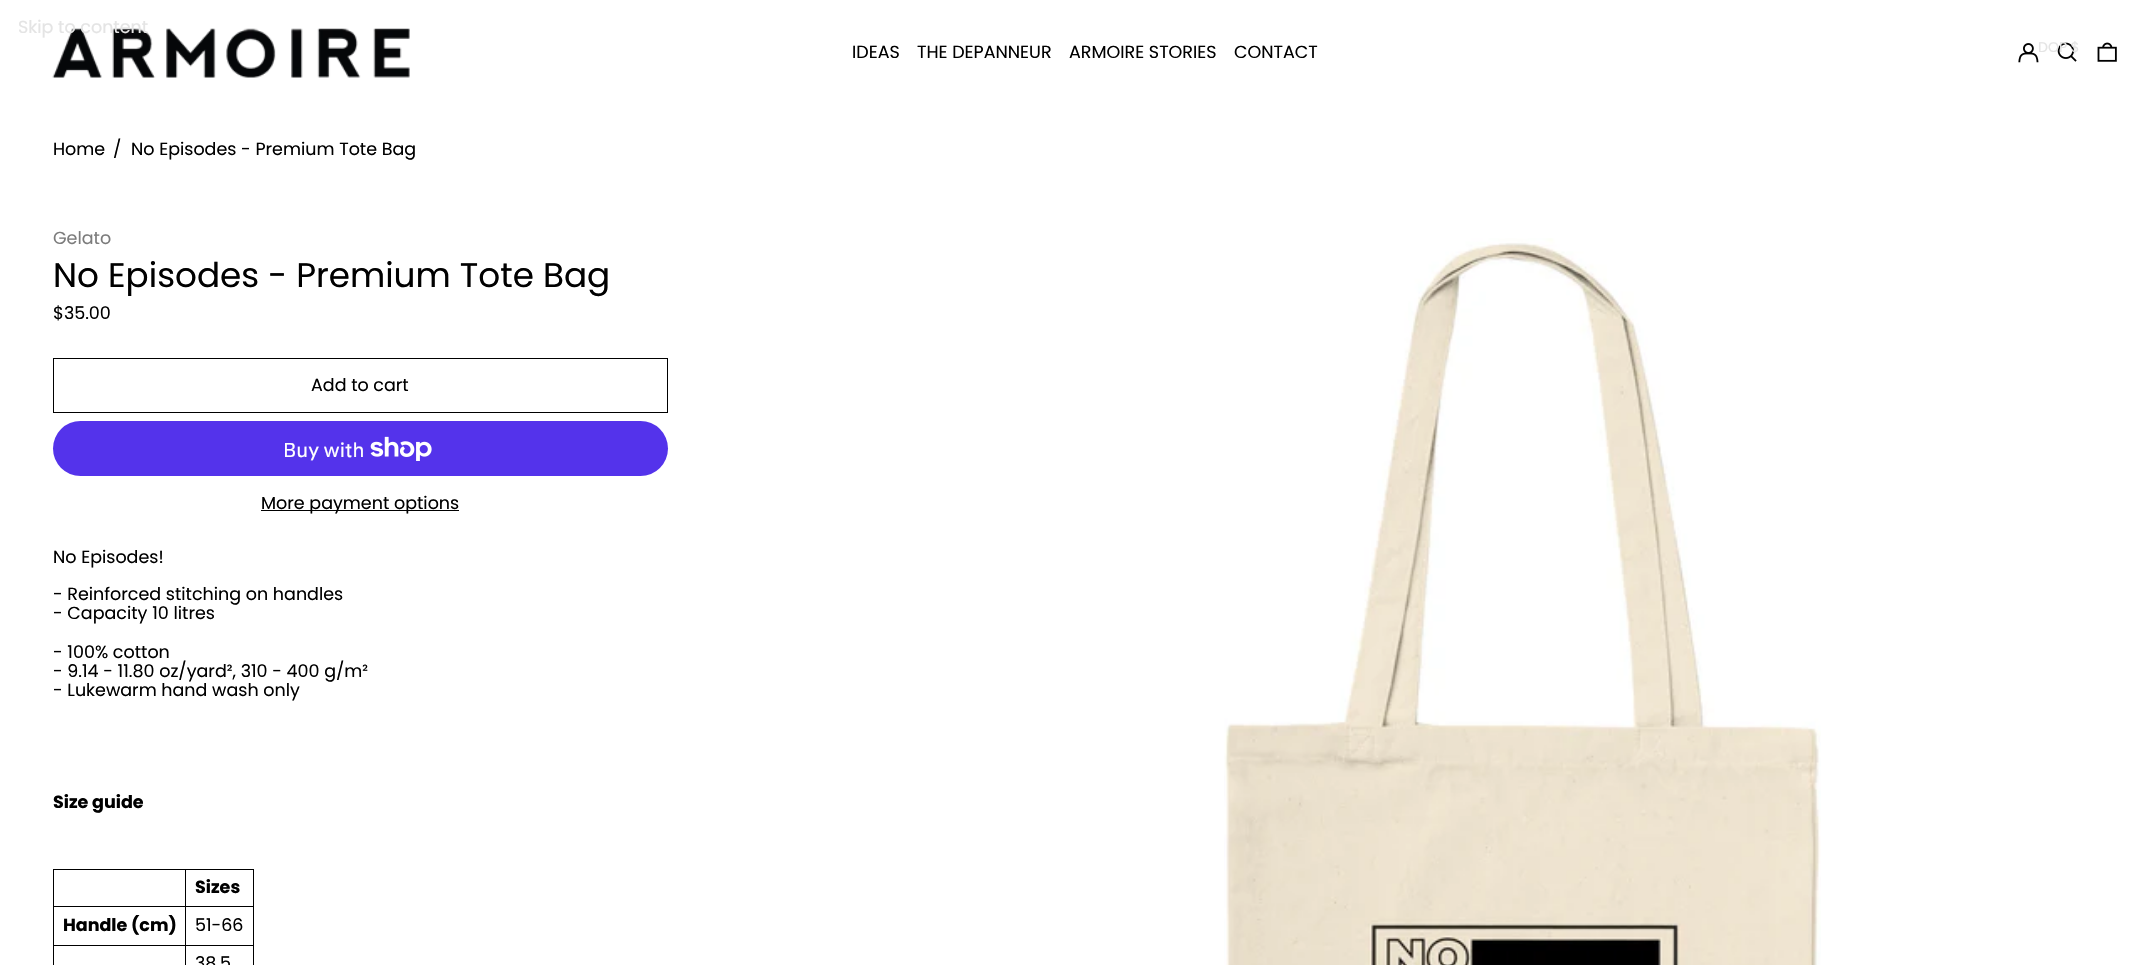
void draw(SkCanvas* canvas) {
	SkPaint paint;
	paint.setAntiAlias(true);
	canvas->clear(0xffffffff);
	canvas->drawImageRect(SkImages::DeferredFromEncodedData(SkData::MakeFromFileName("img1.png")), SkRect::MakeXYWH(52, 28, 358, 50), SkSamplingOptions());
	SkFont f1(fontMgr->matchFamilyStyle("Poppins", SkFontStyle::Normal()), 17.5);
	f1.setSubpixel(true);
	paint.setColor(0xffe4e4e4);
	canvas->drawString("Skip to content", 18, 33, f1, paint);
	paint.setColor(0xff000000);
	canvas->drawString("IDEAS", 852, 58, f1, paint);
	canvas->drawString("THE DEPANNEUR", 917, 58, f1, paint);
	canvas->drawString("ARMOIRE STORIES", 1069, 58, f1, paint);
	canvas->drawString("CONTACT", 1234, 58, f1, paint);
	canvas->drawImageRect(SkImages::DeferredFromEncodedData(SkData::MakeFromFileName("img2.png")), SkRect::MakeXYWH(2018, 43, 21, 20), SkSamplingOptions());
	canvas->drawImageRect(SkImages::DeferredFromEncodedData(SkData::MakeFromFileName("img3.png")), SkRect::MakeXYWH(2057, 42, 20, 20), SkSamplingOptions());
	canvas->drawImageRect(SkImages::DeferredFromEncodedData(SkData::MakeFromFileName("img4.png")), SkRect::MakeXYWH(2097, 42, 20, 20), SkSamplingOptions());
	canvas->drawString("Home", 53, 155, f1, paint);
	canvas->drawString("/", 113, 155, f1, paint);
	canvas->drawString("No Episodes - Premium Tote Bag", 131, 155, f1, paint);
	SkFont f2(fontMgr->matchFamilyStyle("Poppins", SkFontStyle::Normal()), 14);
	f2.setSubpixel(true);
	paint.setColor(0xffe4e4e4);
	canvas->drawString("DOP $", 2038, 52, f2, paint);
	paint.setColor(0xff7c7c7c);
	canvas->drawString("Gelato", 53, 244, f1, paint);
	SkFont f3(fontMgr->matchFamilyStyle("Poppins", SkFontStyle::Normal()), 34.2);
	f3.setSubpixel(true);
	paint.setColor(0xff000000);
	canvas->drawString("No Episodes - Premium Tote Bag", 53, 287, f3, paint);
	canvas->drawString("$35.00", 53, 319, f1, paint);
	paint.setStroke(true);
	paint.setStrokeWidth(1);
	canvas->drawRect(SkRect::MakeXYWH(53.5, 358.5, 614, 54), paint);
	paint.setStroke(false);
	canvas->drawString("Add to cart", 311, 391, f1, paint);
	paint.setColor(0xff5433eb);
	canvas->drawRoundRect(SkRect::MakeXYWH(53, 421, 615, 55), 27.5, 27.5, paint);
	SkFont f4(fontMgr->matchFamilyStyle("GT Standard", SkFontStyle::Normal()), 20);
	f4.setSubpixel(true);
	paint.setColor(0xffffffff);
	canvas->drawString("Buy with", 283, 457, f4, paint);
	canvas->drawImageRect(SkImages::DeferredFromEncodedData(SkData::MakeFromFileName("img5.png")), SkRect::MakeXYWH(370, 436, 62, 25), SkSamplingOptions());
	paint.setColor(0xff000000);
	canvas->drawRect(SkRect::MakeXYWH(261, 510, 198, 1), paint);
	canvas->drawString("More payment options", 261, 509, f1, paint);
	canvas->drawString("No Episodes!", 53, 563, f1, paint);
	canvas->drawString("- Reinforced stitching on handles", 53, 600, f1, paint);
	canvas->drawString("- Capacity 10 litres", 53, 619, f1, paint);
	canvas->drawString("- 100% cotton", 53, 658, f1, paint);
	canvas->drawString("- 9.14 - 11.80 oz/yard², 310 - 400 g/m²", 53, 677, f1, paint);
	canvas->drawString("- Lukewarm hand wash only", 53, 696, f1, paint);
	SkFont f5(fontMgr->matchFamilyStyle("Poppins", SkFontStyle::Bold()), 17.5);
	f5.setSubpixel(true);
	canvas->drawString("Size guide", 53, 808, f5, paint);
	canvas->drawRect(SkRect::MakeXYWH(53, 869, 201, 1), paint);
	canvas->drawRect(SkRect::MakeXYWH(253, 869, 1, 96), paint);
	canvas->drawRect(SkRect::MakeXYWH(53, 869, 1, 96), paint);
	canvas->drawRect(SkRect::MakeXYWH(185, 906, 69, 1), paint);
	canvas->drawRect(SkRect::MakeXYWH(185, 945, 69, 1), paint);
	canvas->drawRect(SkRect::MakeXYWH(185, 945, 1, 20), paint);
	canvas->drawRect(SkRect::MakeXYWH(53, 945, 133, 1), paint);
	canvas->drawRect(SkRect::MakeXYWH(185, 906, 1, 40), paint);
	canvas->drawRect(SkRect::MakeXYWH(53, 906, 133, 1), paint);
	canvas->drawRect(SkRect::MakeXYWH(185, 869, 1, 39), paint);
	canvas->drawString("Sizes", 195, 893, f5, paint);
	canvas->drawString("Handle (cm)", 63, 931, f5, paint);
	canvas->drawString("51-66", 195, 931, f1, paint);
	canvas->drawString("38.5", 195, 969, f1, paint);
	canvas->drawImageRect(SkImages::DeferredFromEncodedData(SkData::MakeFromFileName("img6.png")), SkRect::MakeXYWH(1224, 238, 597, 727), SkSamplingOptions());
}
